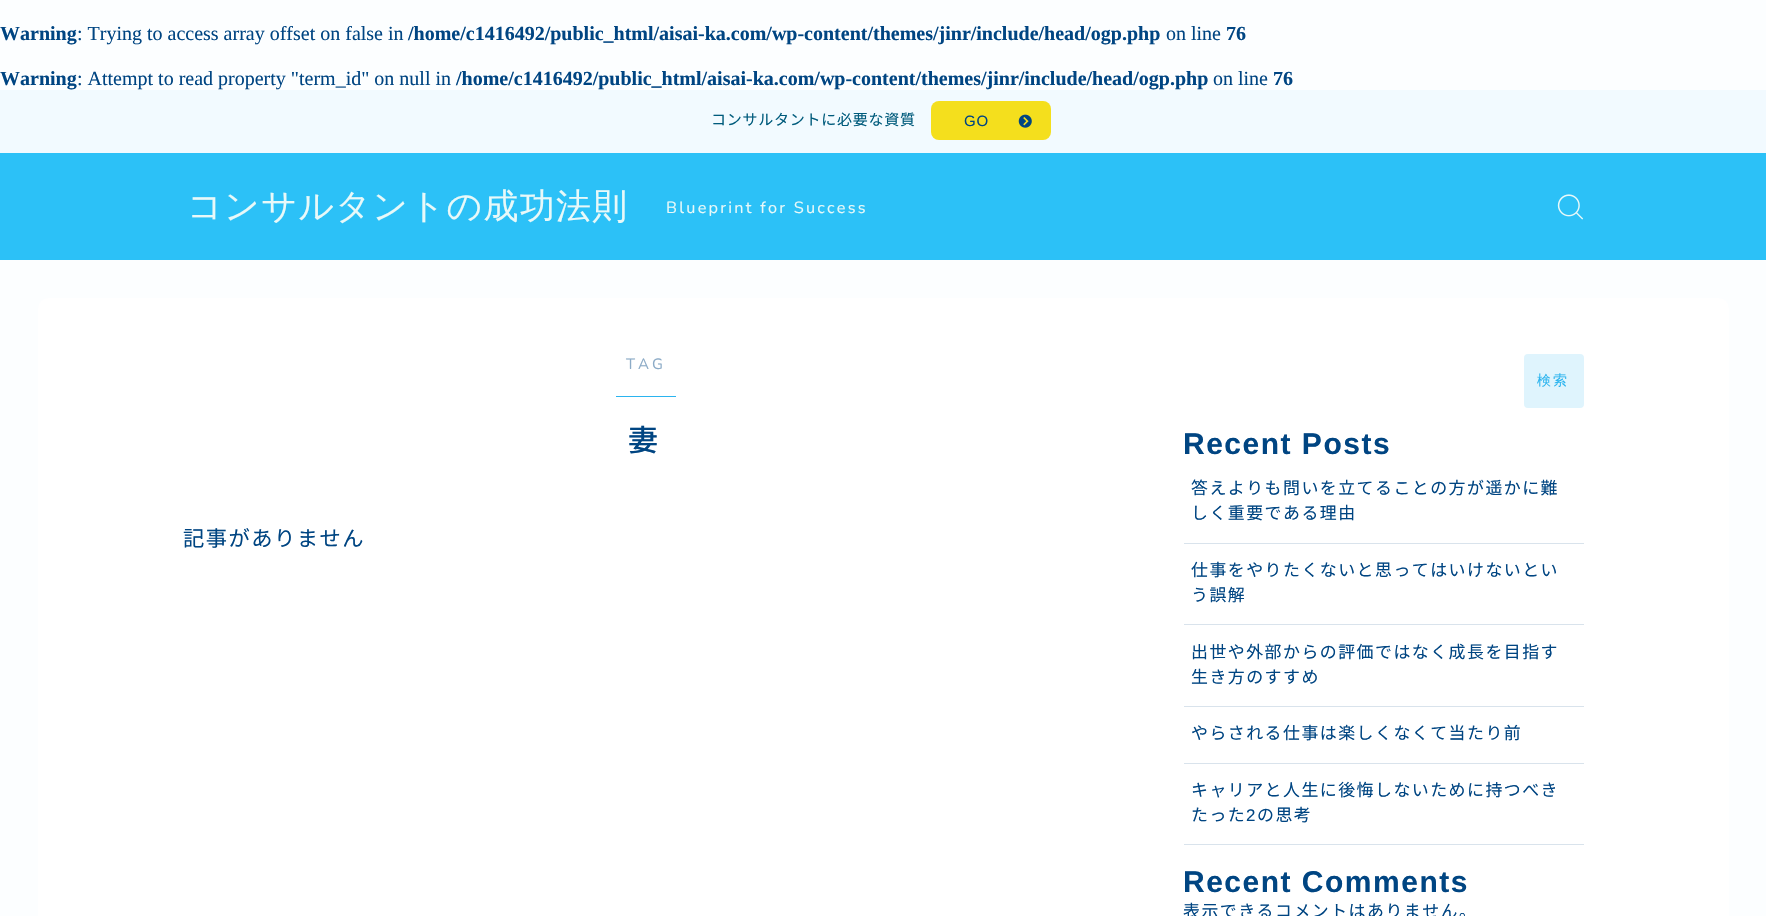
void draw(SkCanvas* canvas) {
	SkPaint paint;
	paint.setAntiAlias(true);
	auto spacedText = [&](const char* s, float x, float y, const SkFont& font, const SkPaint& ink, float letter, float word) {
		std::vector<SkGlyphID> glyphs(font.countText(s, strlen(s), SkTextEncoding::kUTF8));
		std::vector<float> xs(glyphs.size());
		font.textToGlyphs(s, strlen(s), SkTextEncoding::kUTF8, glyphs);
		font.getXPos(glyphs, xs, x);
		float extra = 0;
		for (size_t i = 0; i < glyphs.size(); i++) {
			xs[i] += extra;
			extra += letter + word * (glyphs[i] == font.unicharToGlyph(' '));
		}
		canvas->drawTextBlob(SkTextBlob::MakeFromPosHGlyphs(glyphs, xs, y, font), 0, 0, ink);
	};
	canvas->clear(0xfffcfeff);
	SkFont f1(fontMgr->matchFamilyStyle("Liberation Serif", SkFontStyle::Bold()), 20);
	f1.setSubpixel(true);
	paint.setColor(0xff004582);
	canvas->drawString("Warning", 0, 40, f1, paint);
	SkFont f2(fontMgr->matchFamilyStyle("Liberation Serif", SkFontStyle::Normal()), 20);
	f2.setSubpixel(true);
	canvas->drawString(": Trying to access array offset on false in", 77, 40, f2, paint);
	canvas->drawString("/home/c1416492/public_html/aisai-ka.com/wp-content/themes/jinr/include/head/ogp.php", 408, 40, f1, paint);
	canvas->drawString("on line", 1166, 40, f2, paint);
	canvas->drawString("76", 1226, 40, f1, paint);
	canvas->drawString("Warning", 0, 85, f1, paint);
	canvas->drawString(": Attempt to read property \"term_id\" on null in", 77, 85, f2, paint);
	canvas->drawString("/home/c1416492/public_html/aisai-ka.com/wp-content/themes/jinr/include/head/ogp.php", 456, 85, f1, paint);
	canvas->drawString("on line", 1213, 85, f2, paint);
	canvas->drawString("76", 1273, 85, f1, paint);
	paint.setColor(0xfff2faff);
	canvas->drawRect(SkRect::MakeXYWH(0, 90, 1766, 63), paint);
	SkFont f3(fontMgr->matchFamilyStyle("Noto Sans CJK JP", SkFontStyle::Normal()), 15);
	f3.setSubpixel(true);
	paint.setColor(0xff005b7c);
	spacedText("コンサルタントに必要な資質", 711, 125, f3, paint, 0.75, 0);
	paint.setColor(0xfff4df1d);
	canvas->drawRoundRect(SkRect::MakeXYWH(931, 101, 120, 39), 8, 8, paint);
	SkFont f4(fontMgr->matchFamilyStyle("Liberation Sans", SkFontStyle::Normal()), 15);
	f4.setSubpixel(true);
	paint.setColor(0xff004582);
	spacedText("GO", 964, 126, f4, paint, 0.75, 0);
	canvas->drawImageRect(SkImages::DeferredFromEncodedData(SkData::MakeFromFileName("img1.png")), SkRect::MakeXYWH(1018, 114, 14, 14), SkSamplingOptions());
	paint.setColor(0xff2cc1f7);
	canvas->drawRect(SkRect::MakeXYWH(0, 153, 1766, 107), paint);
	SkFont f5(fontMgr->matchFamilyStyle("WenQuanYi Zen Hei", SkFontStyle(500, SkFontStyle::kNormal_Width, SkFontStyle::kUpright_Slant)), 35);
	f5.setSubpixel(true);
	paint.setColor(0xffe8f9f9);
	spacedText("コンサルタントの成功法則", 187, 218, f5, paint, 1.25, 0);
	SkFont f6(fontMgr->matchFamilyStyle("Nunito", SkFontStyle::Normal()), 16.25);
	f6.setSubpixel(true);
	spacedText("Blueprint for Success", 666, 213, f6, paint, 2.25, 0);
	canvas->drawImageRect(SkImages::DeferredFromEncodedData(SkData::MakeFromFileName("img2.png")), SkRect::MakeXYWH(1557, 194, 27, 26), SkSamplingOptions());
	paint.setColor(0xffffffff);
	canvas->drawRoundRect(SkRect::MakeXYWH(38, 298, 1691, 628), 10, 10, paint);
	SkFont f7(fontMgr->matchFamilyStyle("Nunito", SkFontStyle::Normal()), 15);
	f7.setSubpixel(true);
	paint.setColor(0xff8cabc7);
	spacedText("TAG", 626, 369, f7, paint, 3, 0);
	paint.setColor(0xff2bb4ef);
	canvas->drawRect(SkRect::MakeXYWH(616, 396, 60, 1), paint);
	SkFont f8(fontMgr->matchFamilyStyle("Noto Sans CJK JP", SkFontStyle(500, SkFontStyle::kNormal_Width, SkFontStyle::kUpright_Slant)), 30);
	f8.setSubpixel(true);
	paint.setColor(0xff004582);
	spacedText("妻", 628, 451, f8, paint, 4, 0);
	SkFont f9(fontMgr->matchFamilyStyle("Noto Sans CJK JP", SkFontStyle::Normal()), 21.25);
	f9.setSubpixel(true);
	spacedText("記事がありません", 183, 546, f9, paint, 1.5, 0);
	paint.setColor(0x262bb4ef);
	canvas->drawRoundRect(SkRect::MakeXYWH(1524, 354, 60, 54), 4, 4, paint);
	SkFont f10(fontMgr->matchFamilyStyle("WenQuanYi Zen Hei", SkFontStyle(500, SkFontStyle::kNormal_Width, SkFontStyle::kUpright_Slant)), 14);
	f10.setSubpixel(true);
	paint.setColor(0xff2bb4ef);
	spacedText("検索", 1537, 385, f10, paint, 2, 0);
	SkFont f11(fontMgr->matchFamilyStyle("Liberation Sans", SkFontStyle::Bold()), 30);
	f11.setSubpixel(true);
	paint.setColor(0xff004582);
	spacedText("Recent Posts", 1183, 454, f11, paint, 1.5, 0);
	paint.setColor(0xffd9e3ec);
	canvas->drawRect(SkRect::MakeXYWH(1184, 543, 400, 1), paint);
	SkFont f12(fontMgr->matchFamilyStyle("Noto Sans CJK JP", SkFontStyle::Normal()), 16.9);
	f12.setSubpixel(true);
	paint.setColor(0xff004582);
	spacedText("答えよりも問いを立てることの方が遥かに難", 1191, 494, f12, paint, 1.5, 0);
	spacedText("しく重要である理由", 1191, 519, f12, paint, 1.5, 0);
	paint.setColor(0xffd9e3ec);
	canvas->drawRect(SkRect::MakeXYWH(1184, 624, 400, 1), paint);
	paint.setColor(0xff004582);
	spacedText("仕事をやりたくないと思ってはいけないとい", 1191, 576, f12, paint, 1.5, 0);
	spacedText("う誤解", 1191, 601, f12, paint, 1.5, 0);
	paint.setColor(0xffd9e3ec);
	canvas->drawRect(SkRect::MakeXYWH(1184, 706, 400, 1), paint);
	paint.setColor(0xff004582);
	spacedText("出世や外部からの評価ではなく成長を目指す", 1191, 658, f12, paint, 1.5, 0);
	spacedText("生き方のすすめ", 1191, 683, f12, paint, 1.5, 0);
	paint.setColor(0xffd9e3ec);
	canvas->drawRect(SkRect::MakeXYWH(1184, 763, 400, 1), paint);
	paint.setColor(0xff004582);
	spacedText("やらされる仕事は楽しくなくて当たり前", 1191, 739, f12, paint, 1.5, 0);
	paint.setColor(0xffd9e3ec);
	canvas->drawRect(SkRect::MakeXYWH(1184, 844, 400, 1), paint);
	paint.setColor(0xff004582);
	spacedText("キャリアと人生に後悔しないために持つべき", 1191, 796, f12, paint, 1.5, 0);
	spacedText("たった", 1191, 821, f12, paint, 1.5, 0);
	SkFont f13(fontMgr->matchFamilyStyle("Liberation Sans", SkFontStyle::Normal()), 16.9);
	f13.setSubpixel(true);
	spacedText("2", 1246, 821, f13, paint, 1.5, 0);
	spacedText("の思考", 1257, 821, f12, paint, 1.5, 0);
	spacedText("Recent Comments", 1183, 892, f11, paint, 1.5, 0);
	spacedText("表示できるコメントはありません。", 1183, 917, f12, paint, 1.5, 0);
}
